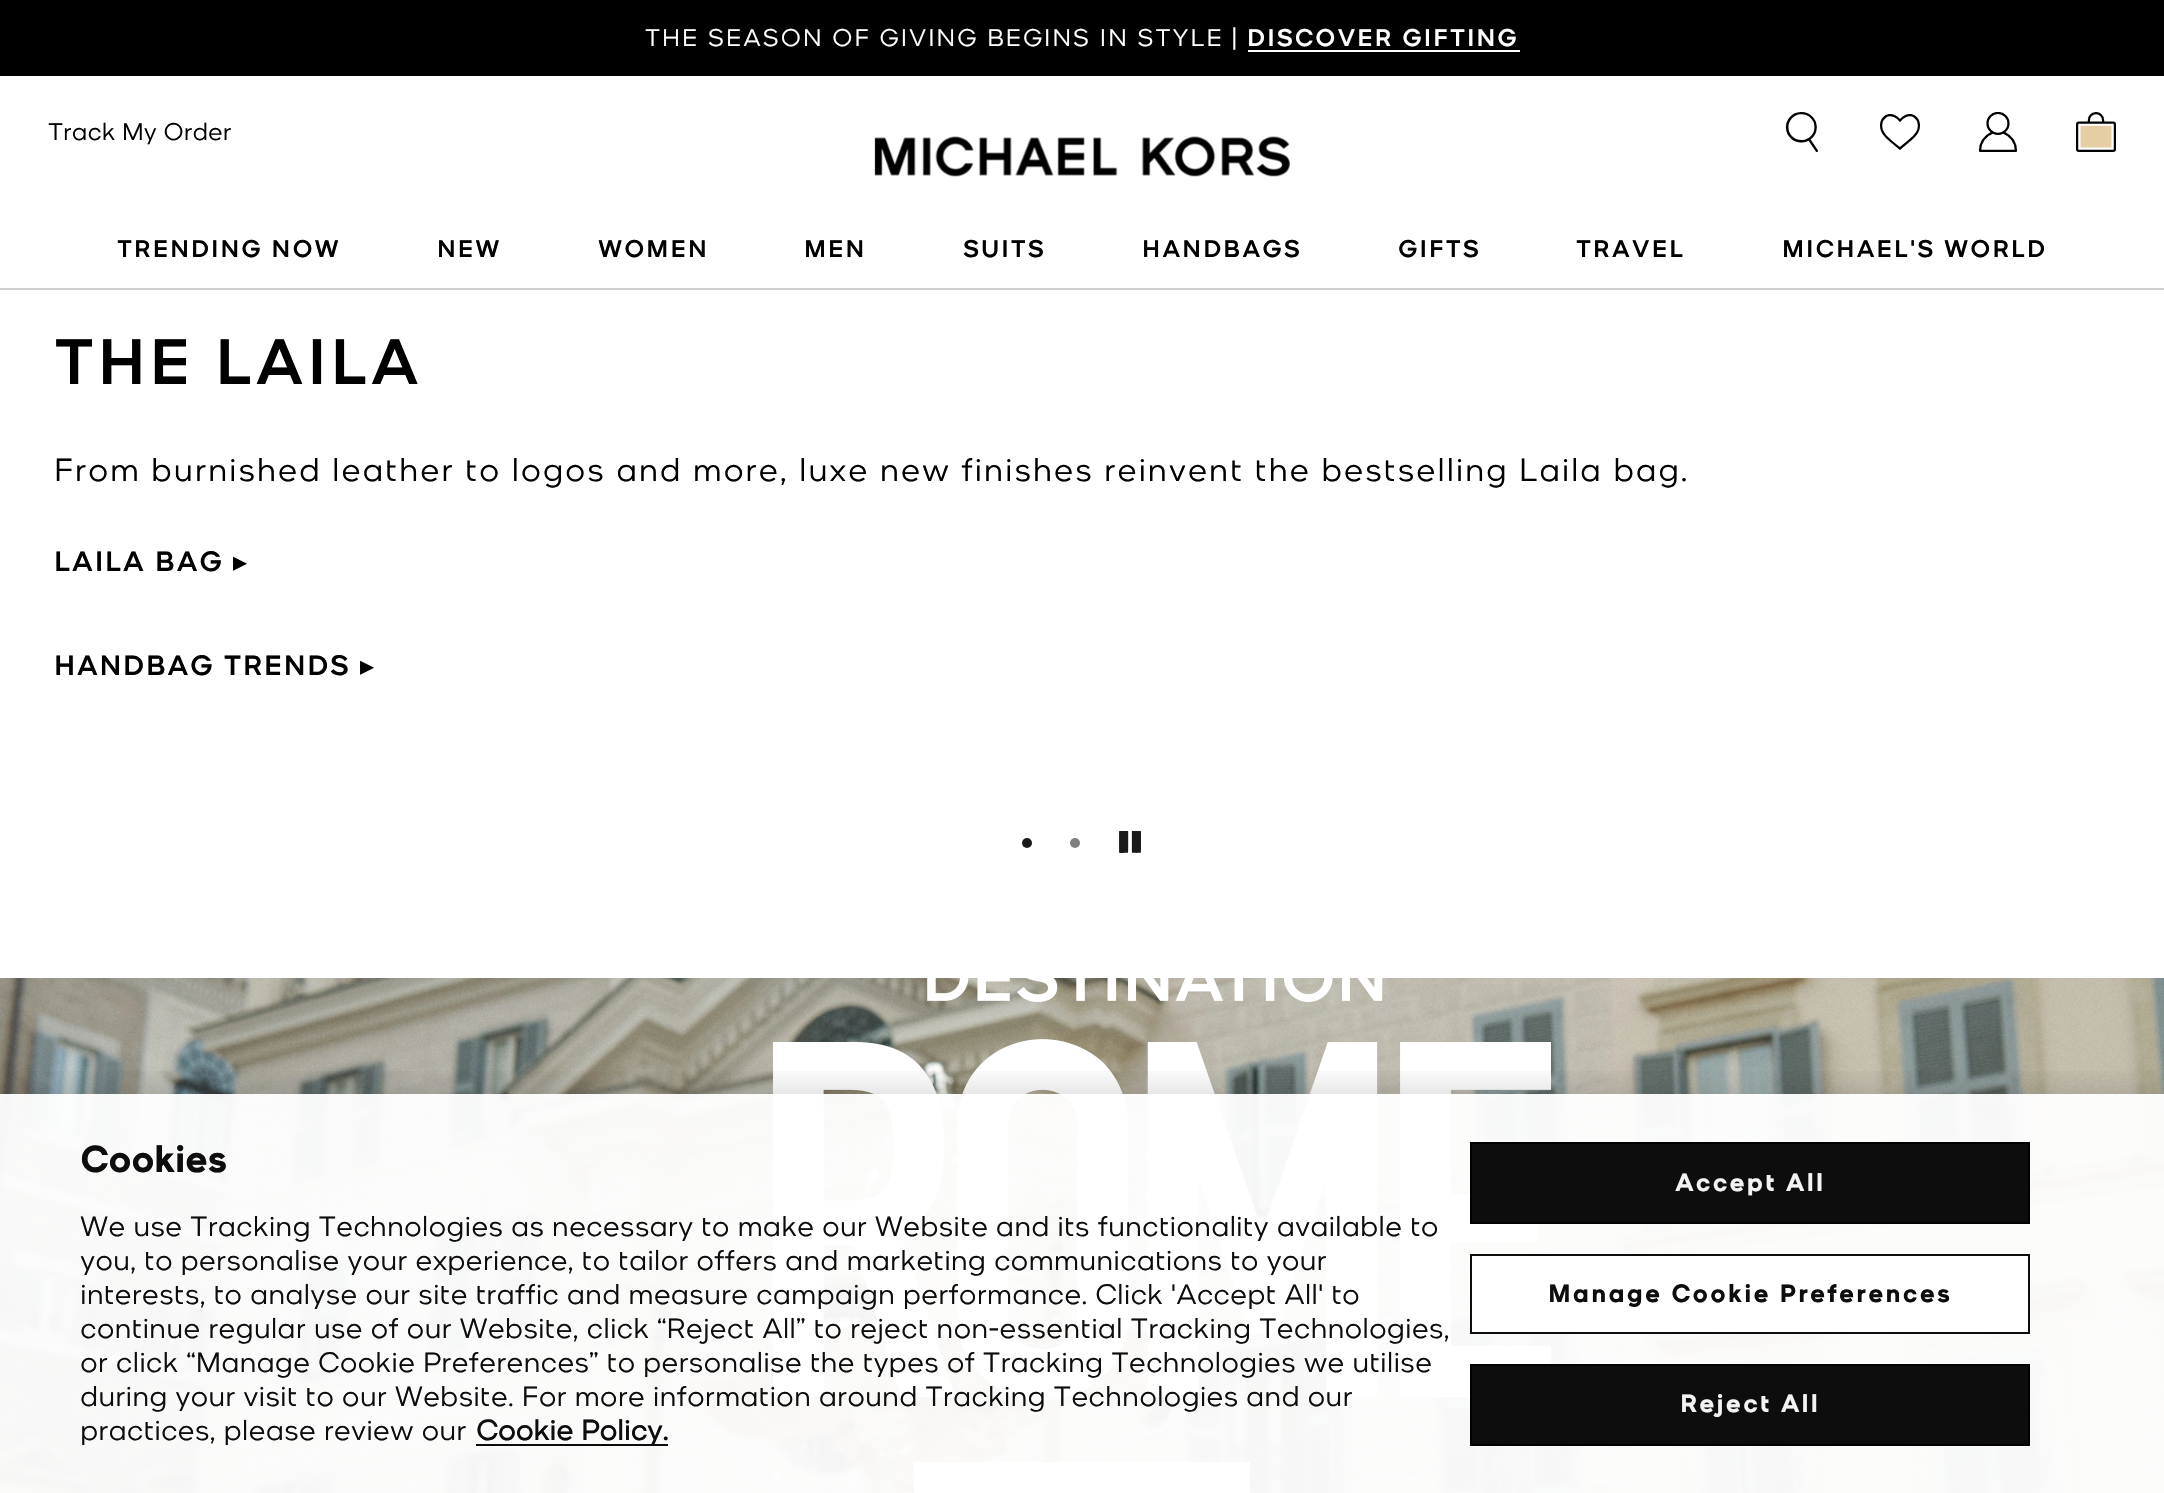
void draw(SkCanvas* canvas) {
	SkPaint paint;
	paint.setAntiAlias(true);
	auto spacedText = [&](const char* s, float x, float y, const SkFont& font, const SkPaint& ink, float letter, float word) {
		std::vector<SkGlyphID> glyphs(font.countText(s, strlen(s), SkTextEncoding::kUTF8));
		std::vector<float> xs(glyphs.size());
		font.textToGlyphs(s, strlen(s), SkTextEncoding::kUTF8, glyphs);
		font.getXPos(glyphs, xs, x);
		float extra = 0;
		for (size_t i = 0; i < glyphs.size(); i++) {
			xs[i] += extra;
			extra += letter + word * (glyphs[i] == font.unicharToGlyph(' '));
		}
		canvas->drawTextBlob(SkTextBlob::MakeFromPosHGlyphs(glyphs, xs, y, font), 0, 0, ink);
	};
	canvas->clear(0xffffffff);
	paint.setColor(0xffd1d1d1);
	canvas->drawRect(SkRect::MakeXYWH(0, 288, 2164, 2), paint);
	paint.setColor(0xff000000);
	canvas->drawRect(SkRect::MakeXYWH(0, 0, 2164, 76), paint);
	SkFont f1(fontMgr->matchFamilyStyle("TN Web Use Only", SkFontStyle(300, SkFontStyle::kNormal_Width, SkFontStyle::kUpright_Slant)), 24);
	f1.setSubpixel(true);
	paint.setColor(0xffffffff);
	spacedText("THE SEASON OF GIVING BEGINS IN STYLE |", 645, 46, f1, paint, 2, 0);
	SkFont f2(fontMgr->matchFamilyStyle("TN Web Use Only", SkFontStyle(500, SkFontStyle::kNormal_Width, SkFontStyle::kUpright_Slant)), 24);
	f2.setSubpixel(true);
	spacedText("DISCOVER GIFTING", 1247, 46, f2, paint, 2, 0);
	canvas->drawRect(SkRect::MakeXYWH(1248, 50, 272, 2), paint);
	paint.setColor(0xff000000);
	canvas->drawString("Track My Order", 48, 140, f1, paint);
	canvas->drawImageRect(SkImages::DeferredFromEncodedData(SkData::MakeFromFileName("img1.png")), SkRect::MakeXYWH(1785, 112, 33, 40), SkSamplingOptions());
	canvas->drawImageRect(SkImages::DeferredFromEncodedData(SkData::MakeFromFileName("img2.png")), SkRect::MakeXYWH(1880, 114, 40, 36), SkSamplingOptions());
	canvas->drawImageRect(SkImages::DeferredFromEncodedData(SkData::MakeFromFileName("img3.png")), SkRect::MakeXYWH(1978, 112, 39, 40), SkSamplingOptions());
	canvas->drawImageRect(SkImages::DeferredFromEncodedData(SkData::MakeFromFileName("img4.png")), SkRect::MakeXYWH(2076, 112, 40, 40), SkSamplingOptions());
	canvas->drawImageRect(SkImages::DeferredFromEncodedData(SkData::MakeFromFileName("img5.png")), SkRect::MakeXYWH(874, 136, 416, 41), SkSamplingOptions());
	spacedText("TRENDING NOW", 117, 257, f2, paint, 2, 0);
	spacedText("NEW", 437, 257, f2, paint, 2, 0);
	spacedText("WOMEN", 598, 257, f2, paint, 2, 0);
	spacedText("MEN", 804, 257, f2, paint, 2, 0);
	spacedText("SUITS", 963, 257, f2, paint, 2, 0);
	spacedText("HANDBAGS", 1142, 257, f2, paint, 2, 0);
	spacedText("GIFTS", 1398, 257, f2, paint, 2, 0);
	spacedText("TRAVEL", 1576, 257, f2, paint, 2, 0);
	spacedText("MICHAEL'S WORLD", 1782, 257, f2, paint, 2, 0);
	SkFont f3(fontMgr->matchFamilyStyle("TN Web Use Only", SkFontStyle(500, SkFontStyle::kNormal_Width, SkFontStyle::kUpright_Slant)), 64);
	f3.setSubpixel(true);
	spacedText("THE LAILA", 54, 384, f3, paint, 3.25, 0);
	SkFont f4(fontMgr->matchFamilyStyle("TN Web Use Only", SkFontStyle(300, SkFontStyle::kNormal_Width, SkFontStyle::kUpright_Slant)), 32);
	f4.setSubpixel(true);
	spacedText("From burnished leather to logos and more, luxe new finishes reinvent the bestselling Laila bag.", 54, 481, f4, paint, 1.6, 0);
	SkFont f5(fontMgr->matchFamilyStyle("TN Web Use Only", SkFontStyle(500, SkFontStyle::kNormal_Width, SkFontStyle::kUpright_Slant)), 28);
	f5.setSubpixel(true);
	spacedText("LAILA BAG", 54, 571, f5, paint, 1.6, 0);
	SkFont f6(fontMgr->matchFamilyStyle("DejaVu Sans", SkFontStyle::Normal()), 28);
	f6.setSubpixel(true);
	spacedText("▸", 233, 571, f6, paint, 1.6, 0);
	spacedText("HANDBAG TRENDS", 54, 675, f5, paint, 1.6, 0);
	spacedText("▸", 360, 675, f6, paint, 1.6, 0);
	paint.setColor(0xff1a1a1a);
	canvas->drawCircle(1027, 843, 5, paint);
	paint.setColor(0xff808080);
	canvas->drawCircle(1075, 843, 5, paint);
	canvas->drawImageRect(SkImages::DeferredFromEncodedData(SkData::MakeFromFileName("img6.png")), SkRect::MakeXYWH(1119, 831, 22, 22), SkSamplingOptions());
	canvas->drawImageRect(SkImages::DeferredFromEncodedData(SkData::MakeFromFileName("img7.png")), SkRect::MakeXYWH(0, 978, 2164, 515), SkSamplingOptions());
	canvas->drawImageRect(SkImages::DeferredFromEncodedData(SkData::MakeFromFileName("img8.png")), SkRect::MakeXYWH(773, 978, 778, 422), SkSamplingOptions());
	paint.setColor(0xffffffff);
	canvas->drawRect(SkRect::MakeXYWH(914, 1462, 336, 31), paint);
	canvas->save();
	canvas->clipRect(SkRect::MakeXYWH(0, 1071, 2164, 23));
	paint.setColor(0x30000000);
	paint.setMaskFilter(SkMaskFilter::MakeBlur(kNormal_SkBlurStyle, 18));
	canvas->drawRect(SkRect::MakeXYWH(0, 1094, 2164, 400), paint);
	paint.setMaskFilter(nullptr);
	canvas->restore();
	paint.setColor(0xf2ffffff);
	canvas->drawRect(SkRect::MakeXYWH(0, 1094, 2164, 399), paint);
	SkFont f7(fontMgr->matchFamilyStyle("TN Web Use Only", SkFontStyle::Bold()), 36);
	f7.setSubpixel(true);
	paint.setColor(0xff0d0d0d);
	canvas->drawString("Cookies", 80, 1172, f7, paint);
	SkFont f8(fontMgr->matchFamilyStyle("TN Web Use Only", SkFontStyle(300, SkFontStyle::kNormal_Width, SkFontStyle::kUpright_Slant)), 28);
	f8.setSubpixel(true);
	canvas->drawString("We use Tracking Technologies as necessary to make our Website and its functionality available to", 80, 1236, f8, paint);
	canvas->drawString("you, to personalise your experience, to tailor offers and marketing communications to your", 80, 1270, f8, paint);
	canvas->drawString("interests, to analyse our site traffic and measure campaign performance. Click 'Accept All' to", 80, 1304, f8, paint);
	canvas->drawString("continue regular use of our Website, click “Reject All” to reject non-essential Tracking Technologies,", 80, 1338, f8, paint);
	canvas->drawString("or click “Manage Cookie Preferences” to personalise the types of Tracking Technologies we utilise", 80, 1372, f8, paint);
	canvas->drawString("during your visit to our Website. For more information around Tracking Technologies and our", 80, 1406, f8, paint);
	canvas->drawString("practices, please review our", 80, 1440, f8, paint);
	paint.setColor(0xf2000000);
	canvas->drawRect(SkRect::MakeXYWH(476, 1444, 192, 2), paint);
	SkFont f9(fontMgr->matchFamilyStyle("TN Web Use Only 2", SkFontStyle::Bold()), 28);
	f9.setSubpixel(true);
	paint.setColor(0xff0d0d0d);
	canvas->drawString("Cookie Policy.", 476, 1440, f9, paint);
	paint.setColor(0xf2000000);
	canvas->drawRect(SkRect::MakeXYWH(1471, 1143, 558, 80), paint);
	paint.setStroke(true);
	paint.setStrokeWidth(2);
	paint.setColor(0xff010101);
	canvas->drawRect(SkRect::MakeXYWH(1471, 1143, 558, 80), paint);
	SkFont f10(fontMgr->matchFamilyStyle("TN Web Use Only", SkFontStyle::Bold()), 24);
	f10.setSubpixel(true);
	paint.setStroke(false);
	paint.setColor(0xfff3f3f3);
	spacedText("Accept All", 1675, 1191, f10, paint, 2.4, 0);
	paint.setColor(0xf2ffffff);
	canvas->drawRect(SkRect::MakeXYWH(1471, 1255, 558, 78), paint);
	paint.setStroke(true);
	paint.setColor(0xff0d0d0d);
	canvas->drawRect(SkRect::MakeXYWH(1471, 1255, 558, 78), paint);
	paint.setStroke(false);
	spacedText("Manage Cookie Preferences", 1548, 1302, f10, paint, 2.4, 0);
	paint.setColor(0xf2000000);
	canvas->drawRect(SkRect::MakeXYWH(1471, 1365, 558, 80), paint);
	paint.setStroke(true);
	paint.setColor(0xff010101);
	canvas->drawRect(SkRect::MakeXYWH(1471, 1365, 558, 80), paint);
	paint.setStroke(false);
	paint.setColor(0xfff3f3f3);
	spacedText("Reject All", 1680, 1412, f10, paint, 2.4, 0);
}
